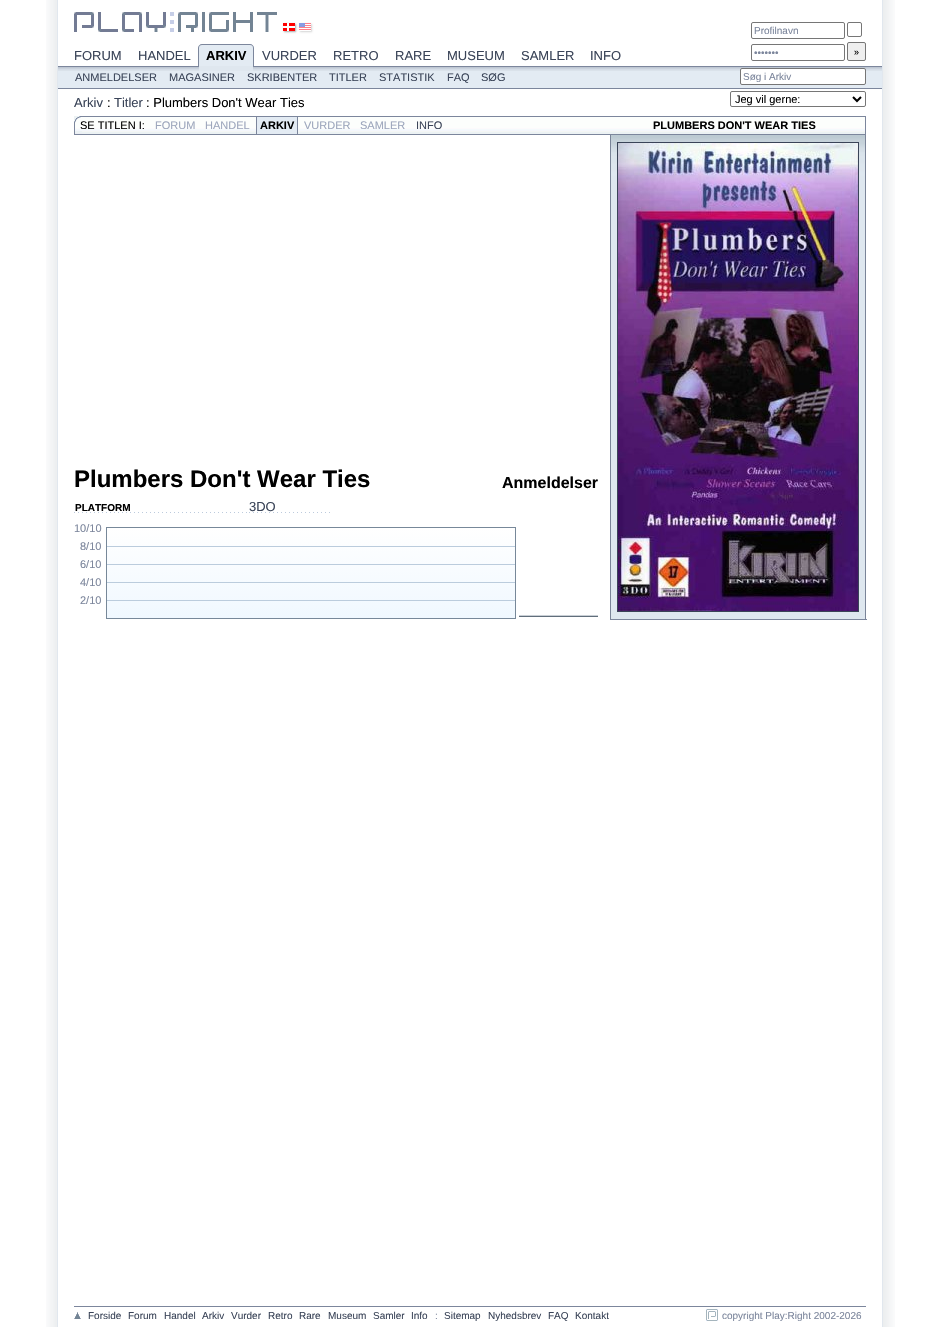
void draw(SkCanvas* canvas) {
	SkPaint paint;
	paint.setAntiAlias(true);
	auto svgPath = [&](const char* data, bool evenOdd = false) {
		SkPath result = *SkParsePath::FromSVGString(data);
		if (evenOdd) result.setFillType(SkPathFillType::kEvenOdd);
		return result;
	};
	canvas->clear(0xffffffff);
	canvas->drawImageRect(SkImages::DeferredFromEncodedData(SkData::MakeFromFileName("img1.png")), SkRect::MakeXYWH(46, 0, 849, 1327), SkSamplingOptions());
	canvas->drawImageRect(SkImages::DeferredFromEncodedData(SkData::MakeFromFileName("img2.png")), SkRect::MakeXYWH(74, 12, 203, 20), SkSamplingOptions());
	paint.setColor(0xffaaaaaa);
	paint.setMaskFilter(SkMaskFilter::MakeBlur(kNormal_SkBlurStyle, 1));
	canvas->drawRect(SkRect::MakeXYWH(284, 24, 12, 8), paint);
	paint.setMaskFilter(nullptr);
	canvas->save();
	canvas->clipPath(svgPath("M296 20H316V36H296ZM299 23H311V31H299Z", true), true);
	paint.setColor(0xffd4d4d4);
	paint.setMaskFilter(SkMaskFilter::MakeBlur(kNormal_SkBlurStyle, 1));
	canvas->drawRect(SkRect::MakeXYWH(300, 24, 12, 8), paint);
	paint.setMaskFilter(nullptr);
	canvas->restore();
	canvas->drawImageRect(SkImages::DeferredFromEncodedData(SkData::MakeFromFileName("img3.png")), SkRect::MakeXYWH(283, 23, 12, 8), SkSamplingOptions());
	canvas->drawImageRect(SkImages::DeferredFromEncodedData(SkData::MakeFromFileName("img4.png")), SkRect::MakeXYWH(299, 23, 12, 7), SkSamplingOptions());
	paint.setStroke(true);
	paint.setStrokeWidth(1);
	paint.setColor(0xff767676);
	canvas->drawRoundRect(SkRect::MakeXYWH(751.5, 22.5, 93, 16), 1.5, 1.5, paint);
	SkFont f1(fontMgr->matchFamilyStyle("Liberation Sans", SkFontStyle::Normal()), 10);
	f1.setSubpixel(true);
	paint.setStroke(false);
	paint.setColor(0xff7c869c);
	canvas->drawString("Profilnavn", 754, 34, f1, paint);
	paint.setStroke(true);
	paint.setColor(0xff767676);
	canvas->drawRoundRect(SkRect::MakeXYWH(847.5, 22.5, 14, 14), 1.5, 1.5, paint);
	canvas->drawRoundRect(SkRect::MakeXYWH(751.5, 44.5, 93, 16), 1.5, 1.5, paint);
	paint.setStroke(false);
	paint.setColor(0xff7c869c);
	canvas->drawString("•••••••", 754, 56, f1, paint);
	paint.setColor(0xffefefef);
	canvas->drawRoundRect(SkRect::MakeXYWH(847.5, 42.5, 18, 18), 1.5, 1.5, paint);
	paint.setStroke(true);
	paint.setColor(0xff767676);
	canvas->drawRoundRect(SkRect::MakeXYWH(847.5, 42.5, 18, 18), 1.5, 1.5, paint);
	SkFont f2(fontMgr->matchFamilyStyle("Liberation Sans", SkFontStyle::Normal()), 9);
	f2.setSubpixel(true);
	paint.setStroke(false);
	paint.setColor(0xff000000);
	canvas->drawString("»", 854, 55, f2, paint);
	SkFont f3(fontMgr->matchFamilyStyle("Liberation Sans", SkFontStyle::Normal()), 13);
	f3.setSubpixel(true);
	paint.setColor(0xff3a4458);
	canvas->drawString("Arkiv", 74, 107, f3, paint);
	paint.setColor(0xff000000);
	canvas->drawString(":", 107, 107, f3, paint);
	paint.setColor(0xff3a4458);
	canvas->drawString("Titler", 114, 107, f3, paint);
	paint.setColor(0xff000000);
	canvas->drawString(": Plumbers Don't Wear Ties", 146, 107, f3, paint);
	paint.setStroke(true);
	paint.setColor(0xff767676);
	canvas->drawRoundRect(SkRect::MakeXYWH(730.5, 91.5, 135, 15), 1.5, 1.5, paint);
	paint.setStrokeWidth(2);
	paint.setColor(0xff000000);
	canvas->drawPath(svgPath("M853 97L857 101L861 97"), paint);
	SkFont f4(fontMgr->matchFamilyStyle("Liberation Sans", SkFontStyle::Normal()), 11);
	f4.setSubpixel(true);
	paint.setStroke(false);
	canvas->drawString("Jeg vil gerne:", 735, 103, f4, paint);
	canvas->drawImageRect(SkImages::DeferredFromEncodedData(SkData::MakeFromFileName("img5.png")), SkRect::MakeXYWH(74, 116, 792, 18), SkSamplingOptions());
	paint.setColor(0xff7c869c);
	canvas->drawRect(SkRect::MakeXYWH(74, 134, 792, 1), paint);
	paint.setColor(0xff000000);
	canvas->drawString("SE TITLEN I:", 80, 129, f4, paint);
	paint.setColor(0xff9ca6bc);
	canvas->drawString("FORUM", 155, 129, f4, paint);
	canvas->drawString("HANDEL", 205, 129, f4, paint);
	paint.setColor(0xffe3ebf3);
	canvas->drawRect(SkRect::MakeXYWH(257, 117, 40, 17), paint);
	paint.setColor(0xff7c869c);
	canvas->drawRect(SkRect::MakeXYWH(297, 117, 1, 17), paint);
	canvas->drawRect(SkRect::MakeXYWH(256, 117, 1, 17), paint);
	SkFont f5(fontMgr->matchFamilyStyle("Liberation Sans", SkFontStyle::Bold()), 11);
	f5.setSubpixel(true);
	paint.setColor(0xff000000);
	canvas->drawString("ARKIV", 260, 129, f5, paint);
	paint.setColor(0xff9ca6bc);
	canvas->drawString("VURDER", 304, 129, f4, paint);
	canvas->drawString("SAMLER", 360, 129, f4, paint);
	paint.setColor(0xff3a4458);
	canvas->drawString("INFO", 416, 129, f4, paint);
	paint.setColor(0xff000000);
	canvas->drawString("PLUMBERS DON'T WEAR TIES", 653, 129, f5, paint);
	SkFont f6(fontMgr->matchFamilyStyle("Liberation Sans", SkFontStyle::Bold()), 24);
	f6.setSubpixel(true);
	canvas->drawString("Plumbers Don't Wear Ties", 74, 487, f6, paint);
	SkFont f7(fontMgr->matchFamilyStyle("Liberation Sans", SkFontStyle::Bold()), 16);
	f7.setSubpixel(true);
	canvas->drawString("Anmeldelser", 502, 488, f7, paint);
	canvas->drawImageRect(SkImages::DeferredFromEncodedData(SkData::MakeFromFileName("img6.png")), SkRect::MakeXYWH(74, 512, 173, 1), SkSamplingOptions());
	SkFont f8(fontMgr->matchFamilyStyle("Liberation Sans", SkFontStyle::Bold()), 10);
	f8.setSubpixel(true);
	canvas->drawString("PLATFORM", 75, 511, f8, paint);
	canvas->drawImageRect(SkImages::DeferredFromEncodedData(SkData::MakeFromFileName("img7.png")), SkRect::MakeXYWH(249, 512, 81, 1), SkSamplingOptions());
	paint.setColor(0xff3a4458);
	canvas->drawString("3DO", 249, 511, f3, paint);
	paint.setColor(0xff7c869c);
	canvas->drawString("10/10", 74, 532, f4, paint);
	canvas->drawString("8/10", 80, 550, f4, paint);
	canvas->drawString("6/10", 80, 568, f4, paint);
	canvas->drawString("4/10", 80, 586, f4, paint);
	canvas->drawString("2/10", 80, 604, f4, paint);
	canvas->drawImageRect(SkImages::DeferredFromEncodedData(SkData::MakeFromFileName("img8.png")), SkRect::MakeXYWH(106, 527, 410, 92), SkSamplingOptions());
	paint.setColor(0xffc9cfd5);
	canvas->drawRect(SkRect::MakeXYWH(519, 615, 79, 1), paint);
	paint.setColor(0xff616e7b);
	canvas->drawRect(SkRect::MakeXYWH(519, 616, 79, 1), paint);
	canvas->drawImageRect(SkImages::DeferredFromEncodedData(SkData::MakeFromFileName("img9.png")), SkRect::MakeXYWH(610, 135, 256, 484), SkSamplingOptions());
	paint.setColor(0xff7c869c);
	canvas->drawRect(SkRect::MakeXYWH(610, 619, 257, 1), paint);
	paint.setStroke(true);
	paint.setStrokeWidth(1);
	paint.setColor(0xff3a4458);
	canvas->drawRect(SkRect::MakeXYWH(617.5, 142.5, 241, 469), paint);
	canvas->drawImageRect(SkImages::DeferredFromEncodedData(SkData::MakeFromFileName("img10.png")), SkRect::MakeXYWH(618, 143, 240, 468), SkSamplingOptions());
	paint.setStroke(false);
	canvas->drawString("FORUM", 74, 60, f3, paint);
	canvas->drawString("HANDEL", 138, 60, f3, paint);
	paint.setColor(0xffe3ebf3);
	canvas->drawPath(svgPath("M202 44H250C252 44 254 46 254 48V66H198V48C198 46 200 44 202 44Z"), paint);
	paint.setColor(0xff7c869c);
	canvas->drawPath(svgPath("M202 44H250C252 44 254 46 254 48V66H198V48C198 46 200 44 202 44ZM202 45H250C252 45 253 46 253 48V66H199V48C199 46 200 45 202 45Z", true), paint);
	SkFont f9(fontMgr->matchFamilyStyle("Liberation Sans", SkFontStyle::Bold()), 13);
	f9.setSubpixel(true);
	paint.setColor(0xff000000);
	canvas->drawString("ARKIV", 206, 60, f9, paint);
	canvas->drawImageRect(SkImages::DeferredFromEncodedData(SkData::MakeFromFileName("img11.png")), SkRect::MakeXYWH(58, 66, 824, 23), SkSamplingOptions());
	paint.setColor(0xffdfe7ef);
	canvas->drawRect(SkRect::MakeXYWH(199, 66, 54, 5), paint);
	paint.setColor(0xff3a4458);
	canvas->drawString("VURDER", 262, 60, f3, paint);
	canvas->drawString("RETRO", 333, 60, f3, paint);
	canvas->drawString("RARE", 395, 60, f3, paint);
	canvas->drawString("MUSEUM", 447, 60, f3, paint);
	canvas->drawString("SAMLER", 521, 60, f3, paint);
	canvas->drawString("INFO", 590, 60, f3, paint);
	canvas->drawString("ANMELDELSER", 75, 81, f4, paint);
	canvas->drawString("MAGASINER", 169, 81, f4, paint);
	canvas->drawString("SKRIBENTER", 247, 81, f4, paint);
	canvas->drawString("TITLER", 329, 81, f4, paint);
	canvas->drawString("STATISTIK", 379, 81, f4, paint);
	canvas->drawString("FAQ", 447, 81, f4, paint);
	canvas->drawString("SØG", 481, 81, f4, paint);
	paint.setColor(0xffffffff);
	canvas->drawRoundRect(SkRect::MakeXYWH(740.5, 68.5, 125, 16), 1.5, 1.5, paint);
	paint.setStroke(true);
	paint.setColor(0xff767676);
	canvas->drawRoundRect(SkRect::MakeXYWH(740.5, 68.5, 125, 16), 1.5, 1.5, paint);
	paint.setStroke(false);
	paint.setColor(0xff7c869c);
	canvas->drawString("Søg i Arkiv", 743, 80, f1, paint);
	canvas->drawRect(SkRect::MakeXYWH(74, 1306, 792, 1), paint);
	canvas->drawImageRect(SkImages::DeferredFromEncodedData(SkData::MakeFromFileName("img12.png")), SkRect::MakeXYWH(74, 1312, 7, 7), SkSamplingOptions());
	paint.setColor(0xff3a4458);
	canvas->drawString("Forside", 88, 1319, f1, paint);
	canvas->drawString("Forum", 128, 1319, f1, paint);
	canvas->drawString("Handel", 164, 1319, f1, paint);
	canvas->drawString("Arkiv", 202, 1319, f1, paint);
	canvas->drawString("Vurder", 231, 1319, f1, paint);
	canvas->drawString("Retro", 268, 1319, f1, paint);
	canvas->drawString("Rare", 299, 1319, f1, paint);
	canvas->drawString("Museum", 328, 1319, f1, paint);
	canvas->drawString("Samler", 373, 1319, f1, paint);
	canvas->drawString("Info", 411, 1319, f1, paint);
	paint.setColor(0xff7c869c);
	canvas->drawString(":", 435, 1319, f1, paint);
	paint.setColor(0xff3a4458);
	canvas->drawString("Sitemap", 444, 1319, f1, paint);
	canvas->drawString("Nyhedsbrev", 488, 1319, f1, paint);
	canvas->drawString("FAQ", 548, 1319, f1, paint);
	canvas->drawString("Kontakt", 575, 1319, f1, paint);
	canvas->drawImageRect(SkImages::DeferredFromEncodedData(SkData::MakeFromFileName("img13.png")), SkRect::MakeXYWH(706, 1309, 12, 12), SkSamplingOptions());
	paint.setColor(0xff7c869c);
	canvas->drawString("copyright Play:Right 2002-2026", 722, 1319, f1, paint);
}
